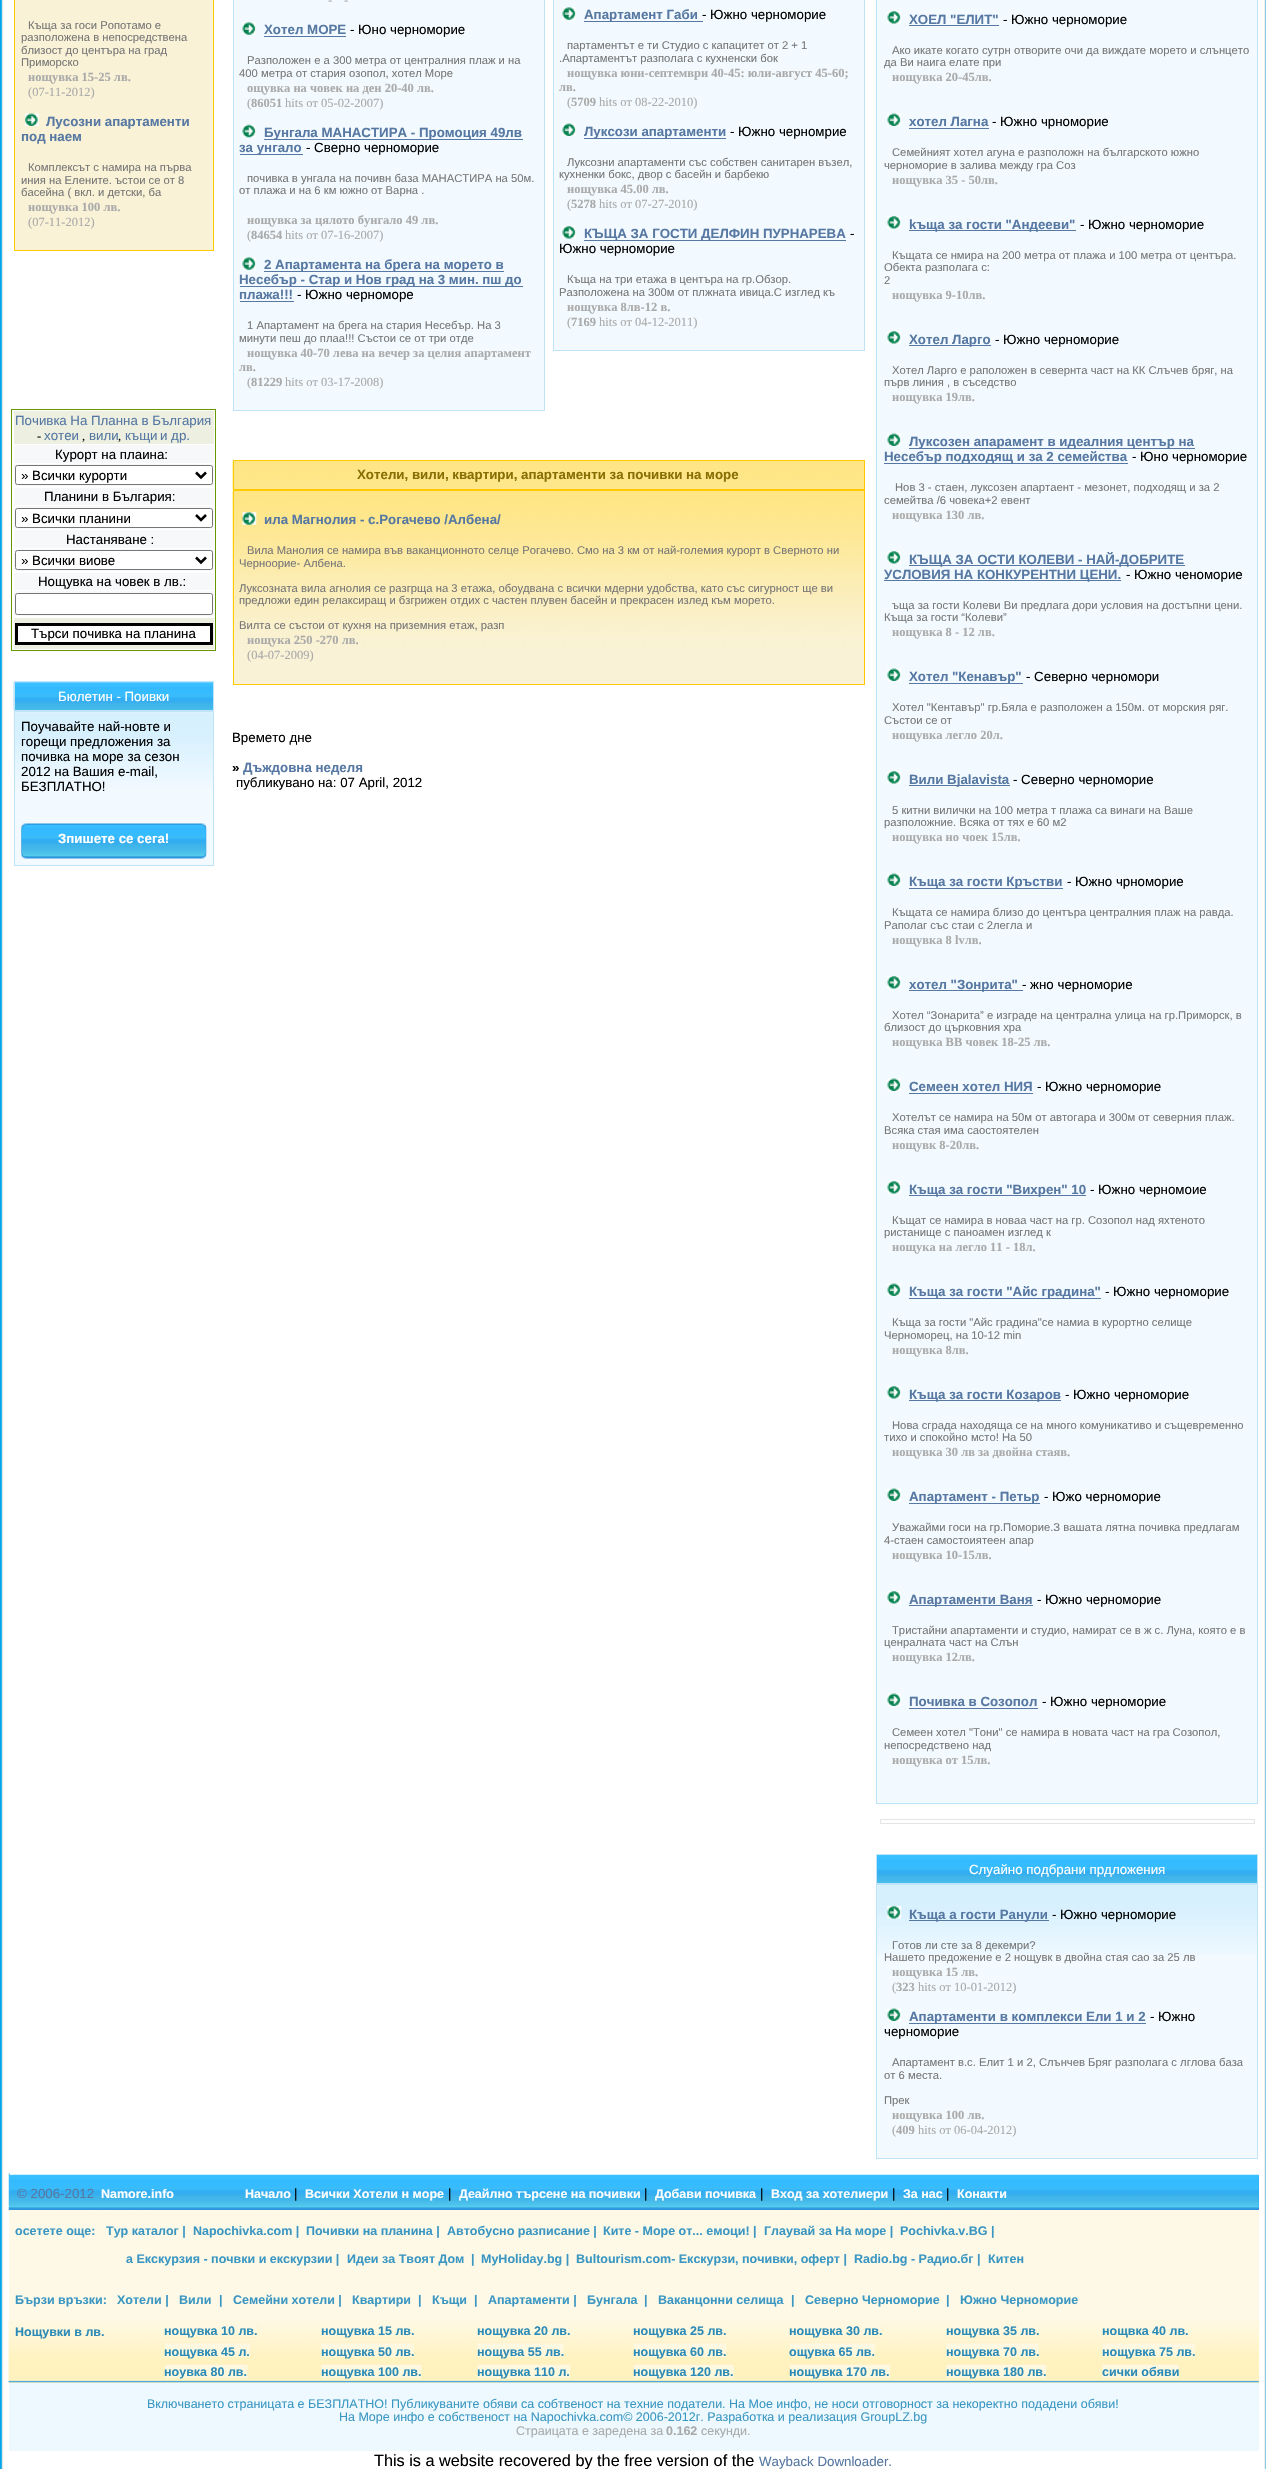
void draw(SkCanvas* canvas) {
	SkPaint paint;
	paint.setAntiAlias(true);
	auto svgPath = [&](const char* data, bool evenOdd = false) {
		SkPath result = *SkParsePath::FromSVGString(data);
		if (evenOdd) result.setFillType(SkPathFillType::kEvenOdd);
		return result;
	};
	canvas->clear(0xffffffff);
	canvas->drawImageRect(SkImages::DeferredFromEncodedData(SkData::MakeFromFileName("img1.png")), SkRect::MakeXYWH(0, 0, 1266, 2469), SkSamplingOptions());
	paint.setColor(0xfff9f2d6);
	canvas->drawRect(SkRect::MakeXYWH(14.5, -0.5, 199, 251), paint);
	paint.setStroke(true);
	paint.setStrokeWidth(1);
	paint.setColor(0xffffca00);
	canvas->drawRect(SkRect::MakeXYWH(14.5, -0.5, 199, 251), paint);
	SkFont f1(fontMgr->matchFamilyStyle("Liberation Sans", SkFontStyle::Normal()), 11.25);
	f1.setSubpixel(true);
	paint.setStroke(false);
	paint.setColor(0xff777777);
	canvas->drawString("Къща за госи Ропотамо е", 28, 29, f1, paint);
	canvas->drawString("разположена в непосредствена", 21, 41, f1, paint);
	canvas->drawString("близост до центъра на град", 21, 54, f1, paint);
	canvas->drawString("Приморско", 21, 66, f1, paint);
	SkFont f2(fontMgr->matchFamilyStyle("Liberation Serif", SkFontStyle::Bold()), 12.5);
	f2.setSubpixel(true);
	paint.setColor(0xffaaaaaa);
	canvas->drawString("нощувка 15-25 лв.", 28, 81, f2, paint);
	SkFont f3(fontMgr->matchFamilyStyle("Liberation Serif", SkFontStyle::Normal()), 12.5);
	f3.setSubpixel(true);
	canvas->drawString("(07-11-2012)", 28, 96, f3, paint);
	canvas->drawImageRect(SkImages::DeferredFromEncodedData(SkData::MakeFromFileName("img2.png")), SkRect::MakeXYWH(25, 113, 14, 13), SkSamplingOptions());
	SkFont f4(fontMgr->matchFamilyStyle("Liberation Sans", SkFontStyle::Bold()), 13.3);
	f4.setSubpixel(true);
	paint.setColor(0xff5678a2);
	canvas->drawString("Лусозни апартаменти", 46, 126, f4, paint);
	canvas->drawString("под наем", 21, 141, f4, paint);
	paint.setColor(0xff777777);
	canvas->drawString("Комплексът с намира на първа", 28, 171, f1, paint);
	canvas->drawString("иния на Елените. ъстои се от 8", 21, 184, f1, paint);
	canvas->drawString("басейна ( вкл. и детски, ба", 21, 196, f1, paint);
	paint.setColor(0xffaaaaaa);
	canvas->drawString("нощувка 100 лв.", 28, 211, f2, paint);
	canvas->drawString("(07-11-2012)", 28, 226, f3, paint);
	paint.setStroke(true);
	paint.setColor(0xff669900);
	canvas->drawRect(SkRect::MakeXYWH(11.5, 409.5, 204, 241), paint);
	paint.setStroke(false);
	paint.setColor(0xffedefe1);
	canvas->drawRect(SkRect::MakeXYWH(14, 411, 200, 33), paint);
	SkFont f5(fontMgr->matchFamilyStyle("Liberation Sans", SkFontStyle::Normal()), 13.3);
	f5.setSubpixel(true);
	paint.setColor(0xff5678a2);
	canvas->drawString("Почивка На Планна в България", 15, 425, f5, paint);
	paint.setColor(0xff000000);
	canvas->drawString("-", 37, 440, f3, paint);
	paint.setColor(0xff5678a2);
	canvas->drawString("хотеи", 44, 440, f5, paint);
	canvas->drawString("вили", 89, 440, f5, paint);
	canvas->drawString("къщи", 125, 440, f5, paint);
	canvas->drawString("и др.", 160, 440, f5, paint);
	paint.setColor(0xff000000);
	canvas->drawString(",", 82, 440, f3, paint);
	canvas->drawString(",", 118, 440, f3, paint);
	paint.setColor(0xfff7f8fa);
	canvas->drawRect(SkRect::MakeXYWH(14, 445, 200, 18), paint);
	paint.setColor(0xff000000);
	canvas->drawString("Курорт на плаина:", 55, 459, f5, paint);
	paint.setColor(0xfff7f8fa);
	canvas->drawRect(SkRect::MakeXYWH(14, 464, 200, 22), paint);
	paint.setColor(0xffffffff);
	canvas->drawRoundRect(SkRect::MakeXYWH(15.5, 465.5, 197, 19), 2, 2, paint);
	paint.setStroke(true);
	paint.setColor(0xff767676);
	canvas->drawRoundRect(SkRect::MakeXYWH(15.5, 465.5, 197, 19), 2, 2, paint);
	paint.setStrokeWidth(2.5);
	paint.setColor(0xff000000);
	canvas->drawPath(svgPath("M196 472.5L201 477.5L206 472.5"), paint);
	paint.setStroke(false);
	canvas->drawString("» Всички курорти", 21, 480, f5, paint);
	paint.setColor(0xfff7f8fa);
	canvas->drawRect(SkRect::MakeXYWH(14, 488, 200, 17), paint);
	paint.setColor(0xff000000);
	canvas->drawString("Планини в България:", 44, 501, f5, paint);
	paint.setColor(0xfff7f8fa);
	canvas->drawRect(SkRect::MakeXYWH(14, 506, 200, 23), paint);
	paint.setColor(0xffffffff);
	canvas->drawRoundRect(SkRect::MakeXYWH(15.5, 508.5, 197, 19), 2, 2, paint);
	paint.setStroke(true);
	paint.setStrokeWidth(1);
	paint.setColor(0xff767676);
	canvas->drawRoundRect(SkRect::MakeXYWH(15.5, 508.5, 197, 19), 2, 2, paint);
	paint.setStrokeWidth(2.5);
	paint.setColor(0xff000000);
	canvas->drawPath(svgPath("M196 515L201 520L206 515"), paint);
	paint.setStroke(false);
	canvas->drawString("» Всички планини", 21, 523, f5, paint);
	paint.setColor(0xfff7f8fa);
	canvas->drawRect(SkRect::MakeXYWH(14, 530, 200, 18), paint);
	paint.setColor(0xff000000);
	canvas->drawString("Настаняване :", 66, 544, f5, paint);
	paint.setColor(0xfff7f8fa);
	canvas->drawRect(SkRect::MakeXYWH(14, 549, 200, 22), paint);
	paint.setColor(0xffffffff);
	canvas->drawRoundRect(SkRect::MakeXYWH(15.5, 550.5, 197, 19), 2, 2, paint);
	paint.setStroke(true);
	paint.setStrokeWidth(1);
	paint.setColor(0xff767676);
	canvas->drawRoundRect(SkRect::MakeXYWH(15.5, 550.5, 197, 19), 2, 2, paint);
	paint.setStrokeWidth(2.5);
	paint.setColor(0xff000000);
	canvas->drawPath(svgPath("M196 557.5L201 562.5L206 557.5"), paint);
	paint.setStroke(false);
	canvas->drawString("» Всички виове", 21, 565, f5, paint);
	paint.setColor(0xfff7f8fa);
	canvas->drawRect(SkRect::MakeXYWH(14, 573, 200, 17), paint);
	paint.setColor(0xff000000);
	canvas->drawString("Нощувка на човек в лв.:", 38, 586, f5, paint);
	paint.setColor(0xfff7f8fa);
	canvas->drawRect(SkRect::MakeXYWH(14, 591, 200, 25), paint);
	paint.setColor(0xffffffff);
	canvas->drawRoundRect(SkRect::MakeXYWH(15.5, 593.5, 197, 21), 2, 2, paint);
	paint.setStroke(true);
	paint.setStrokeWidth(1);
	paint.setColor(0xff767676);
	canvas->drawRoundRect(SkRect::MakeXYWH(15.5, 593.5, 197, 21), 2, 2, paint);
	paint.setStroke(false);
	paint.setColor(0xffedefe1);
	canvas->drawRect(SkRect::MakeXYWH(14, 618, 200, 31), paint);
	paint.setColor(0xffffffff);
	canvas->drawRect(SkRect::MakeXYWH(16.5, 624.5, 195, 19), paint);
	paint.setStroke(true);
	paint.setStrokeWidth(3);
	paint.setColor(0xff000000);
	canvas->drawRect(SkRect::MakeXYWH(16.5, 624.5, 195, 19), paint);
	paint.setStroke(false);
	canvas->drawString("Търси почивка на планина", 31, 638, f5, paint);
	canvas->drawImageRect(SkImages::DeferredFromEncodedData(SkData::MakeFromFileName("img3.png")), SkRect::MakeXYWH(13, 682, 200, 29), SkSamplingOptions());
	paint.setStroke(true);
	paint.setStrokeWidth(1);
	paint.setColor(0xffbfe4fa);
	canvas->drawRect(SkRect::MakeXYWH(14.5, 681.5, 199, 29), paint);
	paint.setStroke(false);
	paint.setColor(0xffffffff);
	canvas->drawString("Бюлетин - Поивки", 58, 701, f5, paint);
	paint.setColor(0xfff3faff);
	canvas->drawRect(SkRect::MakeXYWH(15, 712, 198, 153), paint);
	canvas->drawImageRect(SkImages::DeferredFromEncodedData(SkData::MakeFromFileName("img4.png")), SkRect::MakeXYWH(13, 712, 200, 77), SkSamplingOptions());
	paint.setStroke(true);
	paint.setColor(0xffbfe4fa);
	canvas->drawRect(SkRect::MakeXYWH(14.5, 711.5, 199, 154), paint);
	paint.setStroke(false);
	paint.setColor(0xff000000);
	canvas->drawString("Поучавайте най-новте и", 21, 731, f5, paint);
	canvas->drawString("горещи предложения за", 21, 746, f5, paint);
	canvas->drawString("почивка на море за сезон", 21, 761, f5, paint);
	canvas->drawString("2012 на Вашия e-mail,", 21, 776, f5, paint);
	canvas->drawString("БЕЗПЛАТНО!", 21, 791, f5, paint);
	canvas->drawImageRect(SkImages::DeferredFromEncodedData(SkData::MakeFromFileName("img5.png")), SkRect::MakeXYWH(21, 823, 186, 36), SkSamplingOptions());
	paint.setColor(0xffffffff);
	canvas->drawString("Зпишете се сега!", 58, 843, f4, paint);
	paint.setColor(0xfff3faff);
	canvas->drawRect(SkRect::MakeXYWH(233.5, -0.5, 311, 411), paint);
	paint.setStroke(true);
	paint.setColor(0xffbfe4fa);
	canvas->drawRect(SkRect::MakeXYWH(233.5, -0.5, 311, 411), paint);
	paint.setStroke(false);
	paint.setColor(0xffaaaaaa);
	canvas->drawString("-", 328, 4, f3, paint);
	canvas->drawString("-", 344, 4, f3, paint);
	canvas->drawImageRect(SkImages::DeferredFromEncodedData(SkData::MakeFromFileName("img6.png")), SkRect::MakeXYWH(242, 22, 14, 13), SkSamplingOptions());
	paint.setColor(0xff5678a2);
	canvas->drawString("Хотел МОРЕ", 264, 34, f4, paint);
	canvas->drawRect(SkRect::MakeXYWH(264, 36, 82, 1), paint);
	paint.setColor(0xff000000);
	canvas->drawString("- Юно черноморие", 350, 34, f5, paint);
	paint.setColor(0xff777777);
	canvas->drawString("Разположен е а 300 метра от централния плаж и на", 247, 64, f1, paint);
	canvas->drawString("400 метра от стария озопол, хотел Море", 239, 77, f1, paint);
	paint.setColor(0xffaaaaaa);
	canvas->drawString("ощувка на човек на ден 20-40 лв.", 247, 92, f2, paint);
	canvas->drawString("(", 247, 107, f3, paint);
	canvas->drawString("86051", 251, 107, f2, paint);
	canvas->drawString("hits от 05-02-2007)", 285, 107, f3, paint);
	canvas->drawImageRect(SkImages::DeferredFromEncodedData(SkData::MakeFromFileName("img7.png")), SkRect::MakeXYWH(242, 124, 14, 14), SkSamplingOptions());
	paint.setColor(0xff5678a2);
	canvas->drawRect(SkRect::MakeXYWH(264, 139, 259, 1), paint);
	canvas->drawString("Бунгала МАНАСТИРА - Промоция 49лв", 264, 137, f4, paint);
	canvas->drawRect(SkRect::MakeXYWH(240, 154, 63, 1), paint);
	canvas->drawString("за унгало", 239, 152, f4, paint);
	paint.setColor(0xff000000);
	canvas->drawString("- Сверно черноморие", 306, 152, f5, paint);
	paint.setColor(0xff777777);
	canvas->drawString("почивка в унгала на почивн база МАНАСТИРА на 50м.", 247, 182, f1, paint);
	canvas->drawString("от плажа и на 6 км южно от Варна .", 239, 194, f1, paint);
	paint.setColor(0xffaaaaaa);
	canvas->drawString("нощувка за цялото бунгало 49 лв.", 247, 224, f2, paint);
	canvas->drawString("(", 247, 239, f3, paint);
	canvas->drawString("84654", 251, 239, f2, paint);
	canvas->drawString("hits от 07-16-2007)", 285, 239, f3, paint);
	canvas->drawImageRect(SkImages::DeferredFromEncodedData(SkData::MakeFromFileName("img6.png")), SkRect::MakeXYWH(242, 257, 14, 13), SkSamplingOptions());
	paint.setColor(0xff5678a2);
	canvas->drawRect(SkRect::MakeXYWH(264, 271, 240, 1), paint);
	canvas->drawString("2 Апартаментa на брега на морето в", 264, 269, f4, paint);
	canvas->drawRect(SkRect::MakeXYWH(240, 286, 283, 1), paint);
	canvas->drawString("Несебър - Стар и Нов град на 3 мин. пш до", 239, 284, f4, paint);
	canvas->drawString("плажа!!!", 239, 299, f4, paint);
	canvas->drawRect(SkRect::MakeXYWH(240, 301, 54, 1), paint);
	paint.setColor(0xff000000);
	canvas->drawString("- Южно черноморе", 297, 299, f5, paint);
	paint.setColor(0xff777777);
	canvas->drawString("1 Апартамент на брега на стария Несебър. На 3", 247, 329, f1, paint);
	canvas->drawString("минути пеш до плаа!!! Състои се от три отде", 239, 342, f1, paint);
	paint.setColor(0xffaaaaaa);
	canvas->drawString("нощувка 40-70 лева на вечер за целия апартамент", 247, 357, f2, paint);
	canvas->drawString("лв.", 239, 371, f2, paint);
	canvas->drawString("(", 247, 386, f3, paint);
	canvas->drawString("81229", 251, 386, f2, paint);
	canvas->drawString("hits от 03-17-2008)", 285, 386, f3, paint);
	paint.setColor(0xfff3faff);
	canvas->drawRect(SkRect::MakeXYWH(553.5, -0.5, 311, 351), paint);
	paint.setStroke(true);
	paint.setColor(0xffbfe4fa);
	canvas->drawRect(SkRect::MakeXYWH(553.5, -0.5, 311, 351), paint);
	canvas->drawImageRect(SkImages::DeferredFromEncodedData(SkData::MakeFromFileName("img8.png")), SkRect::MakeXYWH(562, 7, 14, 13), SkSamplingOptions());
	paint.setStroke(false);
	paint.setColor(0xff5678a2);
	canvas->drawRect(SkRect::MakeXYWH(584, 21, 119, 1), paint);
	canvas->drawString("Апартамент Габи", 584, 19, f4, paint);
	paint.setColor(0xff000000);
	canvas->drawString("- Южно черноморие", 702, 19, f5, paint);
	paint.setColor(0xff777777);
	canvas->drawString("партаментът е ти Студио с капацитет от 2 + 1", 567, 49, f1, paint);
	canvas->drawString(".Апартаментът разполага с кухненски бок", 559, 62, f1, paint);
	paint.setColor(0xffaaaaaa);
	canvas->drawString("нощувка юни-септември 40-45: юли-август 45-60;", 567, 77, f2, paint);
	canvas->drawString("лв.", 559, 91, f2, paint);
	canvas->drawString("(", 567, 106, f3, paint);
	canvas->drawString("5709", 571, 106, f2, paint);
	canvas->drawString("hits от 08-22-2010)", 599, 106, f3, paint);
	canvas->drawImageRect(SkImages::DeferredFromEncodedData(SkData::MakeFromFileName("img9.png")), SkRect::MakeXYWH(562, 123, 14, 13), SkSamplingOptions());
	paint.setColor(0xff5678a2);
	canvas->drawRect(SkRect::MakeXYWH(584, 138, 142, 1), paint);
	canvas->drawString("Луксози апартаменти", 584, 136, f4, paint);
	paint.setColor(0xff000000);
	canvas->drawString("- Южно черномрие", 730, 136, f5, paint);
	paint.setColor(0xff777777);
	canvas->drawString("Луксозни апартаменти със собствен санитарен възел,", 567, 166, f1, paint);
	canvas->drawString("кухненки бокс, двор с басейн и барбекю", 559, 178, f1, paint);
	paint.setColor(0xffaaaaaa);
	canvas->drawString("нощувка 45.00 лв.", 567, 193, f2, paint);
	canvas->drawString("(", 567, 208, f3, paint);
	canvas->drawString("5278", 571, 208, f2, paint);
	canvas->drawString("hits от 07-27-2010)", 599, 208, f3, paint);
	canvas->drawImageRect(SkImages::DeferredFromEncodedData(SkData::MakeFromFileName("img10.png")), SkRect::MakeXYWH(562, 226, 14, 13), SkSamplingOptions());
	paint.setColor(0xff5678a2);
	canvas->drawRect(SkRect::MakeXYWH(584, 240, 262, 1), paint);
	canvas->drawString("КЪЩА ЗА ГОСТИ ДЕЛФИН ПУРНАРЕВА", 584, 238, f4, paint);
	paint.setColor(0xff000000);
	canvas->drawString("-", 850, 238, f5, paint);
	canvas->drawString("Южно черноморие", 559, 253, f5, paint);
	paint.setColor(0xff777777);
	canvas->drawString("Къща на три етажа в центъра на гр.Обзор.", 567, 283, f1, paint);
	canvas->drawString("Разположена на 300м от плжната ивица.С изглед къ", 559, 296, f1, paint);
	paint.setColor(0xffaaaaaa);
	canvas->drawString("нощувка 8лв-12 в.", 567, 311, f2, paint);
	canvas->drawString("(", 567, 326, f3, paint);
	canvas->drawString("7169", 571, 326, f2, paint);
	canvas->drawString("hits от 04-12-2011)", 599, 326, f3, paint);
	canvas->drawImageRect(SkImages::DeferredFromEncodedData(SkData::MakeFromFileName("img11.png")), SkRect::MakeXYWH(232, 461, 632, 29), SkSamplingOptions());
	paint.setStroke(true);
	paint.setColor(0xffffca00);
	canvas->drawRect(SkRect::MakeXYWH(233.5, 460.5, 631, 29), paint);
	paint.setStroke(false);
	paint.setColor(0xff896e03);
	canvas->drawString("Хотели, вили, квартири, апартаменти за почивки на море", 357, 479, f4, paint);
	paint.setColor(0xfff9f2d6);
	canvas->drawRect(SkRect::MakeXYWH(234, 656, 630, 28), paint);
	canvas->drawImageRect(SkImages::DeferredFromEncodedData(SkData::MakeFromFileName("img12.png")), SkRect::MakeXYWH(232, 491, 632, 165), SkSamplingOptions());
	paint.setStroke(true);
	paint.setColor(0xffffca00);
	canvas->drawRect(SkRect::MakeXYWH(233.5, 490.5, 631, 194), paint);
	canvas->drawImageRect(SkImages::DeferredFromEncodedData(SkData::MakeFromFileName("img13.png")), SkRect::MakeXYWH(242, 512, 15, 13), SkSamplingOptions());
	paint.setStroke(false);
	paint.setColor(0xff5678a2);
	canvas->drawString("ила Магнолия - с.Рогачево /Албена/", 264, 524, f4, paint);
	paint.setColor(0xff777777);
	canvas->drawString("Вила Манолия се намира във ваканционното селце Рогачево. Смо на 3 км от най-големия курорт в Сверното ни", 247, 554, f1, paint);
	canvas->drawString("Черноорие- Албена.", 239, 567, f1, paint);
	canvas->drawString("Луксозната вила агнолия се разгрща на 3 етажа, обоудванa с всички мдерни удобства, като със сигурност ще ви", 239, 592, f1, paint);
	canvas->drawString("предложи един релаксиращ и бзгрижен отдих с частен плувен басейн и прекрасен излед към морето.", 239, 604, f1, paint);
	canvas->drawString("Вилта се състои от кухня на приземния етаж, разп", 239, 629, f1, paint);
	paint.setColor(0xffaaaaaa);
	canvas->drawString("нощука 250 -270 лв.", 247, 644, f2, paint);
	canvas->drawString("(04-07-2009)", 247, 659, f3, paint);
	paint.setColor(0xff000000);
	canvas->drawString("Времето дне", 232, 742, f5, paint);
	canvas->drawString("»", 232, 772, f4, paint);
	paint.setColor(0xff5678a2);
	canvas->drawString("Дъждовна неделя", 243, 772, f4, paint);
	paint.setColor(0xff000000);
	canvas->drawString("публикувано на: 07 April, 2012", 236, 787, f5, paint);
	paint.setColor(0xfff3faff);
	canvas->drawRect(SkRect::MakeXYWH(876.5, -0.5, 381, 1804), paint);
	paint.setStroke(true);
	paint.setColor(0xffbfe4fa);
	canvas->drawRect(SkRect::MakeXYWH(876.5, -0.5, 381, 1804), paint);
	canvas->drawImageRect(SkImages::DeferredFromEncodedData(SkData::MakeFromFileName("img14.png")), SkRect::MakeXYWH(887, 11, 14, 13), SkSamplingOptions());
	paint.setStroke(false);
	paint.setColor(0xff5678a2);
	canvas->drawString("ХОЕЛ \"ЕЛИТ\"", 909, 24, f4, paint);
	canvas->drawRect(SkRect::MakeXYWH(909, 25, 90, 1), paint);
	paint.setColor(0xff000000);
	canvas->drawString("- Южно черноморие", 1003, 24, f5, paint);
	paint.setColor(0xff777777);
	canvas->drawString("Ако икате когато сутрн отворите очи да виждате морето и слънцето", 892, 54, f1, paint);
	canvas->drawString("да Ви наига елате при", 884, 66, f1, paint);
	paint.setColor(0xffaaaaaa);
	canvas->drawString("нощувка 20-45лв.", 892, 81, f2, paint);
	canvas->drawImageRect(SkImages::DeferredFromEncodedData(SkData::MakeFromFileName("img15.png")), SkRect::MakeXYWH(887, 113, 14, 13), SkSamplingOptions());
	paint.setColor(0xff5678a2);
	canvas->drawString("хотел Лагна", 909, 126, f4, paint);
	canvas->drawRect(SkRect::MakeXYWH(909, 128, 80, 1), paint);
	paint.setColor(0xff000000);
	canvas->drawString("- Южно чрноморие", 992, 126, f5, paint);
	paint.setColor(0xff777777);
	canvas->drawString("Семейният хотел агуна е разположн на българското южно", 892, 156, f1, paint);
	canvas->drawString("черноморие в залива между гра Соз", 884, 169, f1, paint);
	paint.setColor(0xffaaaaaa);
	canvas->drawString("нощувка 35 - 50лв.", 892, 184, f2, paint);
	canvas->drawImageRect(SkImages::DeferredFromEncodedData(SkData::MakeFromFileName("img14.png")), SkRect::MakeXYWH(887, 216, 14, 13), SkSamplingOptions());
	paint.setColor(0xff5678a2);
	canvas->drawRect(SkRect::MakeXYWH(909, 230, 167, 1), paint);
	canvas->drawString("kъща за гости \"Андееви\"", 909, 229, f4, paint);
	paint.setColor(0xff000000);
	canvas->drawString("- Южно черноморие", 1080, 229, f5, paint);
	paint.setColor(0xff777777);
	canvas->drawString("Къщата се нмира на 200 метра от плажа и 100 метра от центъра.", 892, 259, f1, paint);
	canvas->drawString("Обекта разполага с:", 884, 271, f1, paint);
	canvas->drawString("2", 884, 284, f1, paint);
	paint.setColor(0xffaaaaaa);
	canvas->drawString("нощувка 9-10лв.", 892, 299, f2, paint);
	canvas->drawImageRect(SkImages::DeferredFromEncodedData(SkData::MakeFromFileName("img14.png")), SkRect::MakeXYWH(887, 331, 14, 13), SkSamplingOptions());
	paint.setColor(0xff5678a2);
	canvas->drawRect(SkRect::MakeXYWH(909, 345, 82, 1), paint);
	canvas->drawString("Хотел Ларго", 909, 344, f4, paint);
	paint.setColor(0xff000000);
	canvas->drawString("- Южно черноморие", 995, 344, f5, paint);
	paint.setColor(0xff777777);
	canvas->drawString("Хотел Ларго е раположен в севернта част на КК Слъчев бряг, на", 892, 374, f1, paint);
	canvas->drawString("първ линия , в съседство", 884, 386, f1, paint);
	paint.setColor(0xffaaaaaa);
	canvas->drawString("нощувка 19лв.", 892, 401, f2, paint);
	canvas->drawImageRect(SkImages::DeferredFromEncodedData(SkData::MakeFromFileName("img15.png")), SkRect::MakeXYWH(887, 433, 14, 13), SkSamplingOptions());
	paint.setColor(0xff5678a2);
	canvas->drawRect(SkRect::MakeXYWH(909, 448, 286, 1), paint);
	canvas->drawString("Луксозен апарамент в идеалния център на", 909, 446, f4, paint);
	canvas->drawRect(SkRect::MakeXYWH(884, 463, 244, 1), paint);
	canvas->drawString("Несебър подходящ и за 2 семейства", 884, 461, f4, paint);
	paint.setColor(0xff000000);
	canvas->drawString("- Юно черноморие", 1132, 461, f5, paint);
	paint.setColor(0xff777777);
	canvas->drawString("Нов 3 - стаен, луксозен апартаент - мезонет, подходящ и за 2", 895, 491, f1, paint);
	canvas->drawString("семейтва /6 човека+2 евент", 884, 504, f1, paint);
	paint.setColor(0xffaaaaaa);
	canvas->drawString("нощувка 130 лв.", 892, 519, f2, paint);
	canvas->drawImageRect(SkImages::DeferredFromEncodedData(SkData::MakeFromFileName("img14.png")), SkRect::MakeXYWH(887, 551, 14, 13), SkSamplingOptions());
	paint.setColor(0xff5678a2);
	canvas->drawRect(SkRect::MakeXYWH(909, 565, 276, 1), paint);
	canvas->drawString("КЪЩА ЗА ОСТИ КОЛЕВИ - НАЙ-ДОБРИТЕ", 909, 564, f4, paint);
	canvas->drawRect(SkRect::MakeXYWH(884, 580, 237, 1), paint);
	canvas->drawString("УСЛОВИЯ НА КОНКУРЕНТНИ ЦЕНИ.", 884, 579, f4, paint);
	paint.setColor(0xff000000);
	canvas->drawString("- Южно ченоморие", 1126, 579, f5, paint);
	paint.setColor(0xff777777);
	canvas->drawString("ъща за гости Колеви Ви предлага дори условия на достъпни цени.", 892, 609, f1, paint);
	canvas->drawString("Къща за гости “Колеви”", 884, 621, f1, paint);
	paint.setColor(0xffaaaaaa);
	canvas->drawString("нощувка 8 - 12 лв.", 892, 636, f2, paint);
	canvas->drawImageRect(SkImages::DeferredFromEncodedData(SkData::MakeFromFileName("img15.png")), SkRect::MakeXYWH(887, 668, 14, 13), SkSamplingOptions());
	paint.setColor(0xff5678a2);
	canvas->drawRect(SkRect::MakeXYWH(909, 683, 114, 1), paint);
	canvas->drawString("Хотел \"Кенавър\"", 909, 681, f4, paint);
	paint.setColor(0xff000000);
	canvas->drawString("- Северно черномори", 1026, 681, f5, paint);
	paint.setColor(0xff777777);
	canvas->drawString("Хотел \"Кентавър\" гр.Бяла е разположен а 150м. от морския ряг.", 892, 711, f1, paint);
	canvas->drawString("Състои се от", 884, 724, f1, paint);
	paint.setColor(0xffaaaaaa);
	canvas->drawString("нощувка легло 20л.", 892, 739, f2, paint);
	canvas->drawImageRect(SkImages::DeferredFromEncodedData(SkData::MakeFromFileName("img14.png")), SkRect::MakeXYWH(887, 771, 14, 13), SkSamplingOptions());
	paint.setColor(0xff5678a2);
	canvas->drawRect(SkRect::MakeXYWH(909, 785, 101, 1), paint);
	canvas->drawString("Вили Bjalavista", 909, 784, f4, paint);
	paint.setColor(0xff000000);
	canvas->drawString("- Северно черноморие", 1013, 784, f5, paint);
	paint.setColor(0xff777777);
	canvas->drawString("5 китни вилички на 100 метра т плажа са винаги на Ваше", 892, 814, f1, paint);
	canvas->drawString("разположние. Всяка от тях е 60 м2", 884, 826, f1, paint);
	paint.setColor(0xffaaaaaa);
	canvas->drawString("нощувка но чоек 15лв.", 892, 841, f2, paint);
	canvas->drawImageRect(SkImages::DeferredFromEncodedData(SkData::MakeFromFileName("img15.png")), SkRect::MakeXYWH(887, 873, 14, 13), SkSamplingOptions());
	paint.setColor(0xff5678a2);
	canvas->drawRect(SkRect::MakeXYWH(909, 888, 154, 1), paint);
	canvas->drawString("Къща за гости Кръстви", 909, 886, f4, paint);
	paint.setColor(0xff000000);
	canvas->drawString("- Южно чрноморие", 1067, 886, f5, paint);
	paint.setColor(0xff777777);
	canvas->drawString("Къщата се намира близо до центъра централния плаж на равда.", 892, 916, f1, paint);
	canvas->drawString("Раполаг със стаи с 2легла и", 884, 929, f1, paint);
	paint.setColor(0xffaaaaaa);
	canvas->drawString("нощувка 8 lvлв.", 892, 944, f2, paint);
	canvas->drawImageRect(SkImages::DeferredFromEncodedData(SkData::MakeFromFileName("img14.png")), SkRect::MakeXYWH(887, 976, 14, 13), SkSamplingOptions());
	paint.setColor(0xff5678a2);
	canvas->drawRect(SkRect::MakeXYWH(909, 990, 114, 1), paint);
	canvas->drawString("хотел \"Зонрита\"", 909, 989, f4, paint);
	paint.setColor(0xff000000);
	canvas->drawString("- жно черноморие", 1022, 989, f5, paint);
	paint.setColor(0xff777777);
	canvas->drawString("Хотел “Зонарита” е изграде на централна улица на гр.Приморск, в", 892, 1019, f1, paint);
	canvas->drawString("близост до църковния хра", 884, 1031, f1, paint);
	paint.setColor(0xffaaaaaa);
	canvas->drawString("нощувка BB човек 18-25 лв.", 892, 1046, f2, paint);
	canvas->drawImageRect(SkImages::DeferredFromEncodedData(SkData::MakeFromFileName("img15.png")), SkRect::MakeXYWH(887, 1078, 14, 13), SkSamplingOptions());
	paint.setColor(0xff5678a2);
	canvas->drawString("Семеен хотел НИЯ", 909, 1091, f4, paint);
	canvas->drawRect(SkRect::MakeXYWH(909, 1093, 124, 1), paint);
	paint.setColor(0xff000000);
	canvas->drawString("- Южно черноморие", 1037, 1091, f5, paint);
	paint.setColor(0xff777777);
	canvas->drawString("Хотелът се намира на 50м от автогара и 300м от северния плаж.", 892, 1121, f1, paint);
	canvas->drawString("Всяка стая има саостоятелен", 884, 1134, f1, paint);
	paint.setColor(0xffaaaaaa);
	canvas->drawString("нощувк 8-20лв.", 892, 1149, f2, paint);
	canvas->drawImageRect(SkImages::DeferredFromEncodedData(SkData::MakeFromFileName("img14.png")), SkRect::MakeXYWH(887, 1181, 14, 13), SkSamplingOptions());
	paint.setColor(0xff5678a2);
	canvas->drawRect(SkRect::MakeXYWH(909, 1195, 177, 1), paint);
	canvas->drawString("Къща за гости \"Вихрен\" 10", 909, 1194, f4, paint);
	paint.setColor(0xff000000);
	canvas->drawString("- Южно черномоие", 1090, 1194, f5, paint);
	paint.setColor(0xff777777);
	canvas->drawString("Къщат се намира в новаа част на гр. Созопол над яхтеното", 892, 1224, f1, paint);
	canvas->drawString("ристанище с паноамен изглед к", 884, 1236, f1, paint);
	paint.setColor(0xffaaaaaa);
	canvas->drawString("нощука на легло 11 - 18л.", 892, 1251, f2, paint);
	canvas->drawImageRect(SkImages::DeferredFromEncodedData(SkData::MakeFromFileName("img15.png")), SkRect::MakeXYWH(887, 1283, 14, 13), SkSamplingOptions());
	paint.setColor(0xff5678a2);
	canvas->drawRect(SkRect::MakeXYWH(909, 1298, 192, 1), paint);
	canvas->drawString("Къща за гости \"Айс градина\"", 909, 1296, f4, paint);
	paint.setColor(0xff000000);
	canvas->drawString("- Южно черноморие", 1105, 1296, f5, paint);
	paint.setColor(0xff777777);
	canvas->drawString("Къща за гости \"Айс градина\"се намиа в курортно селище", 892, 1326, f1, paint);
	canvas->drawString("Черноморец, на 10-12 min", 884, 1339, f1, paint);
	paint.setColor(0xffaaaaaa);
	canvas->drawString("нощувка 8лв.", 892, 1354, f2, paint);
	canvas->drawImageRect(SkImages::DeferredFromEncodedData(SkData::MakeFromFileName("img14.png")), SkRect::MakeXYWH(887, 1386, 14, 13), SkSamplingOptions());
	paint.setColor(0xff5678a2);
	canvas->drawRect(SkRect::MakeXYWH(909, 1400, 152, 1), paint);
	canvas->drawString("Къща за гости Козаров", 909, 1399, f4, paint);
	paint.setColor(0xff000000);
	canvas->drawString("- Южно черноморие", 1065, 1399, f5, paint);
	paint.setColor(0xff777777);
	canvas->drawString("Нова сграда находяща се на много комуникативо и същевременно", 892, 1429, f1, paint);
	canvas->drawString("тихо и спокойно мсто! На 50", 884, 1441, f1, paint);
	paint.setColor(0xffaaaaaa);
	canvas->drawString("нощувка 30 лв за двойна стаяв.", 892, 1456, f2, paint);
	canvas->drawImageRect(SkImages::DeferredFromEncodedData(SkData::MakeFromFileName("img15.png")), SkRect::MakeXYWH(887, 1488, 14, 13), SkSamplingOptions());
	paint.setColor(0xff5678a2);
	canvas->drawRect(SkRect::MakeXYWH(909, 1503, 131, 1), paint);
	canvas->drawString("Апартамент - Петьр", 909, 1501, f4, paint);
	paint.setColor(0xff000000);
	canvas->drawString("- Южо черноморие", 1044, 1501, f5, paint);
	paint.setColor(0xff777777);
	canvas->drawString("Уважайми госи на гр.Поморие.З вашата лятна почивка предлагам", 892, 1531, f1, paint);
	canvas->drawString("4-стаен самостоиятеен апар", 884, 1544, f1, paint);
	paint.setColor(0xffaaaaaa);
	canvas->drawString("нощувка 10-15лв.", 892, 1559, f2, paint);
	canvas->drawImageRect(SkImages::DeferredFromEncodedData(SkData::MakeFromFileName("img14.png")), SkRect::MakeXYWH(887, 1591, 14, 13), SkSamplingOptions());
	paint.setColor(0xff5678a2);
	canvas->drawRect(SkRect::MakeXYWH(909, 1605, 124, 1), paint);
	canvas->drawString("Апартаменти Ваня", 909, 1604, f4, paint);
	paint.setColor(0xff000000);
	canvas->drawString("- Южно черноморие", 1037, 1604, f5, paint);
	paint.setColor(0xff777777);
	canvas->drawString("Тристайни апартаменти и студио, намират се в ж с. Луна, която е в", 892, 1634, f1, paint);
	canvas->drawString("ценралната част на Слън", 884, 1646, f1, paint);
	paint.setColor(0xffaaaaaa);
	canvas->drawString("нощувка 12лв.", 892, 1661, f2, paint);
	canvas->drawImageRect(SkImages::DeferredFromEncodedData(SkData::MakeFromFileName("img15.png")), SkRect::MakeXYWH(887, 1693, 14, 13), SkSamplingOptions());
	paint.setColor(0xff5678a2);
	canvas->drawString("Почивка в Созопол", 909, 1706, f4, paint);
	canvas->drawRect(SkRect::MakeXYWH(909, 1708, 129, 1), paint);
	paint.setColor(0xff000000);
	canvas->drawString("- Южно черноморие", 1042, 1706, f5, paint);
	paint.setColor(0xff777777);
	canvas->drawString("Семеен хотел \"Тони\" се намира в новата част на гра Созопол,", 892, 1736, f1, paint);
	canvas->drawString("непосредствено над", 884, 1749, f1, paint);
	paint.setColor(0xffaaaaaa);
	canvas->drawString("нощувка от 15лв.", 892, 1764, f2, paint);
	paint.setStroke(true);
	paint.setColor(0xffe5e5e5);
	canvas->drawRect(SkRect::MakeXYWH(880.5, 1819.5, 374, 4), paint);
	canvas->drawImageRect(SkImages::DeferredFromEncodedData(SkData::MakeFromFileName("img16.png")), SkRect::MakeXYWH(877, 1855, 380, 28), SkSamplingOptions());
	paint.setColor(0xffbfe4fa);
	canvas->drawRect(SkRect::MakeXYWH(876.5, 1854.5, 381, 29), paint);
	paint.setStroke(false);
	paint.setColor(0xffffffff);
	canvas->drawString("Слуайно подбрани прдложения", 969, 1874, f5, paint);
	paint.setColor(0xfff3faff);
	canvas->drawRect(SkRect::MakeXYWH(877, 1955, 380, 203), paint);
	canvas->drawImageRect(SkImages::DeferredFromEncodedData(SkData::MakeFromFileName("img17.png")), SkRect::MakeXYWH(877, 1885, 380, 70), SkSamplingOptions());
	paint.setStroke(true);
	paint.setColor(0xffbfe4fa);
	canvas->drawRect(SkRect::MakeXYWH(876.5, 1884.5, 381, 274), paint);
	canvas->drawImageRect(SkImages::DeferredFromEncodedData(SkData::MakeFromFileName("img18.png")), SkRect::MakeXYWH(887, 1906, 15, 13), SkSamplingOptions());
	paint.setStroke(false);
	paint.setColor(0xff5678a2);
	canvas->drawRect(SkRect::MakeXYWH(909, 1920, 140, 1), paint);
	canvas->drawString("Къща а гости Ранули", 909, 1919, f4, paint);
	paint.setColor(0xff000000);
	canvas->drawString("- Южно черноморие", 1052, 1919, f5, paint);
	paint.setColor(0xff777777);
	canvas->drawString("Готов ли сте за 8 декемри?", 892, 1949, f1, paint);
	canvas->drawString("Нашето предожение е 2 нощувк в двойна стая сао за 25 лв", 884, 1961, f1, paint);
	paint.setColor(0xffaaaaaa);
	canvas->drawString("нощувка 15 лв.", 892, 1976, f2, paint);
	canvas->drawString("(", 892, 1991, f3, paint);
	canvas->drawString("323", 896, 1991, f2, paint);
	canvas->drawString("hits от 10-01-2012)", 918, 1991, f3, paint);
	canvas->drawImageRect(SkImages::DeferredFromEncodedData(SkData::MakeFromFileName("img15.png")), SkRect::MakeXYWH(887, 2008, 14, 13), SkSamplingOptions());
	paint.setColor(0xff5678a2);
	canvas->drawRect(SkRect::MakeXYWH(909, 2023, 237, 1), paint);
	canvas->drawString("Апартаменти в комплекси Ели 1 и 2", 909, 2021, f4, paint);
	paint.setColor(0xff000000);
	canvas->drawString("- Южно", 1150, 2021, f5, paint);
	canvas->drawString("черноморие", 884, 2036, f5, paint);
	paint.setColor(0xff777777);
	canvas->drawString("Апартамент в.с. Елит 1 и 2, Слънчев Бряг разполага с лглова база", 892, 2066, f1, paint);
	canvas->drawString("от 6 места.", 884, 2079, f1, paint);
	canvas->drawString("Прек", 884, 2104, f1, paint);
	paint.setColor(0xffaaaaaa);
	canvas->drawString("нощувка 100 лв.", 892, 2119, f2, paint);
	canvas->drawString("(", 892, 2134, f3, paint);
	canvas->drawString("409", 896, 2134, f2, paint);
	canvas->drawString("hits от 06-04-2012)", 918, 2134, f3, paint);
	paint.setColor(0xff3399ff);
	canvas->drawRect(SkRect::MakeXYWH(9, 2175, 1250, 35), paint);
	canvas->drawImageRect(SkImages::DeferredFromEncodedData(SkData::MakeFromFileName("img20.png")), SkRect::MakeXYWH(8, 2174, 1251, 36), SkSamplingOptions());
	canvas->drawImageRect(SkImages::DeferredFromEncodedData(SkData::MakeFromFileName("img19.png")), SkRect::MakeXYWH(8, 2173, 5, 2), SkSamplingOptions());
	paint.setColor(0xff5678a2);
	canvas->drawString("© 2006-2012", 17, 2198, f5, paint);
	SkFont f6(fontMgr->matchFamilyStyle("Liberation Sans", SkFontStyle::Bold()), 12.5);
	f6.setSubpixel(true);
	paint.setColor(0xffffffff);
	canvas->drawString("Namore.info", 101, 2198, f6, paint);
	canvas->drawString("Начало", 245, 2198, f6, paint);
	paint.setColor(0xff000000);
	canvas->drawString("|", 294, 2198, f5, paint);
	paint.setColor(0xffffffff);
	canvas->drawString("Всички Хотели н море", 305, 2198, f6, paint);
	paint.setColor(0xff000000);
	canvas->drawString("|", 448, 2198, f5, paint);
	paint.setColor(0xffffffff);
	canvas->drawString("Деайлно търсене на почивки", 459, 2198, f6, paint);
	paint.setColor(0xff000000);
	canvas->drawString("|", 644, 2198, f5, paint);
	paint.setColor(0xffffffff);
	canvas->drawString("Добави почивка", 655, 2198, f6, paint);
	paint.setColor(0xff000000);
	canvas->drawString("|", 760, 2198, f5, paint);
	paint.setColor(0xffffffff);
	canvas->drawString("Вход за хотелиери", 771, 2198, f6, paint);
	paint.setColor(0xff000000);
	canvas->drawString("|", 892, 2198, f5, paint);
	paint.setColor(0xffffffff);
	canvas->drawString("За нас", 903, 2198, f6, paint);
	paint.setColor(0xff000000);
	canvas->drawString("|", 946, 2198, f5, paint);
	paint.setColor(0xffffffff);
	canvas->drawString("Конакти", 957, 2198, f6, paint);
	paint.setColor(0xfffef9e6);
	canvas->drawRect(SkRect::MakeXYWH(9, 2210, 1250, 110), paint);
	paint.setColor(0xff3b97c2);
	canvas->drawString("осетете още:", 15, 2235, f6, paint);
	canvas->drawString("Тур каталог |", 106, 2235, f6, paint);
	canvas->drawString("Napochivka.com |", 193, 2235, f6, paint);
	canvas->drawString("Почивки на планина |", 306, 2235, f6, paint);
	canvas->drawString("Автобусно разписание |", 447, 2235, f6, paint);
	canvas->drawString("Ките - Море от... емоци! |", 603, 2235, f6, paint);
	canvas->drawString("Глаувай за На море |", 764, 2235, f6, paint);
	canvas->drawString("Pochivka.v.BG |", 900, 2235, f6, paint);
	canvas->drawString("а Екскурзия - почвки и екскурзии |", 126, 2263, f6, paint);
	canvas->drawString("Идеи за Твоят Дом", 347, 2263, f6, paint);
	canvas->drawString("|", 471, 2263, f6, paint);
	canvas->drawString("MyHoliday.bg |", 481, 2263, f6, paint);
	canvas->drawString("Bultourism.com- Екскурзи, почивки, оферт |", 576, 2263, f6, paint);
	canvas->drawString("Radio.bg - Радио.бг |", 854, 2263, f6, paint);
	canvas->drawString("Китен", 988, 2263, f6, paint);
	canvas->drawString("Бързи връзки:", 15, 2304, f6, paint);
	canvas->drawString("Хотели |", 117, 2304, f6, paint);
	canvas->drawString("Вили", 179, 2304, f6, paint);
	canvas->drawString("|", 219, 2304, f6, paint);
	canvas->drawString("Семейни хотели |", 233, 2304, f6, paint);
	canvas->drawString("Квартири", 352, 2304, f6, paint);
	canvas->drawString("|", 418, 2304, f6, paint);
	canvas->drawString("Къщи", 432, 2304, f6, paint);
	canvas->drawString("|", 474, 2304, f6, paint);
	canvas->drawString("Апартаменти |", 488, 2304, f6, paint);
	canvas->drawString("Бунгала", 587, 2304, f6, paint);
	canvas->drawString("|", 644, 2304, f6, paint);
	canvas->drawString("Ваканцонни селища", 658, 2304, f6, paint);
	canvas->drawString("|", 791, 2304, f6, paint);
	canvas->drawString("Северно Черноморие", 805, 2304, f6, paint);
	canvas->drawString("|", 946, 2304, f6, paint);
	canvas->drawString("Южно Черноморие", 960, 2304, f6, paint);
	paint.setColor(0xfffff2be);
	canvas->drawRect(SkRect::MakeXYWH(165, 2320, 1094, 63), paint);
	canvas->drawImageRect(SkImages::DeferredFromEncodedData(SkData::MakeFromFileName("img21.png")), SkRect::MakeXYWH(8, 2320, 1251, 63), SkSamplingOptions());
	canvas->drawRect(SkRect::MakeXYWH(9, 2382, 156, 1), paint);
	canvas->drawImageRect(SkImages::DeferredFromEncodedData(SkData::MakeFromFileName("img22.png")), SkRect::MakeXYWH(8, 2320, 157, 63), SkSamplingOptions());
	paint.setColor(0xff2c8ab6);
	canvas->drawString("Нощувки в лв.", 15, 2336, f6, paint);
	paint.setColor(0xfffff2be);
	canvas->drawRect(SkRect::MakeXYWH(165, 2324, 93, 14), paint);
	canvas->drawImageRect(SkImages::DeferredFromEncodedData(SkData::MakeFromFileName("img23.png")), SkRect::MakeXYWH(165, 2324, 93, 14), SkSamplingOptions());
	paint.setColor(0xff2c8ab6);
	canvas->drawString("нощувка 10 лв.", 164, 2335, f6, paint);
	paint.setColor(0xfffff2be);
	canvas->drawRect(SkRect::MakeXYWH(321, 2324, 93, 14), paint);
	canvas->drawImageRect(SkImages::DeferredFromEncodedData(SkData::MakeFromFileName("img24.png")), SkRect::MakeXYWH(321, 2324, 93, 14), SkSamplingOptions());
	paint.setColor(0xff2c8ab6);
	canvas->drawString("нощувка 15 лв.", 321, 2335, f6, paint);
	paint.setColor(0xfffff2be);
	canvas->drawRect(SkRect::MakeXYWH(478, 2337, 92, 1), paint);
	canvas->drawImageRect(SkImages::DeferredFromEncodedData(SkData::MakeFromFileName("img25.png")), SkRect::MakeXYWH(478, 2324, 92, 14), SkSamplingOptions());
	paint.setColor(0xff2c8ab6);
	canvas->drawString("нощувка 20 лв.", 477, 2335, f6, paint);
	paint.setColor(0xfffff2be);
	canvas->drawRect(SkRect::MakeXYWH(634, 2337, 92, 1), paint);
	canvas->drawImageRect(SkImages::DeferredFromEncodedData(SkData::MakeFromFileName("img26.png")), SkRect::MakeXYWH(634, 2324, 92, 14), SkSamplingOptions());
	paint.setColor(0xff2c8ab6);
	canvas->drawString("нощувка 25 лв.", 633, 2335, f6, paint);
	paint.setColor(0xfffff2be);
	canvas->drawRect(SkRect::MakeXYWH(790, 2324, 93, 14), paint);
	canvas->drawImageRect(SkImages::DeferredFromEncodedData(SkData::MakeFromFileName("img27.png")), SkRect::MakeXYWH(790, 2324, 93, 14), SkSamplingOptions());
	paint.setColor(0xff2c8ab6);
	canvas->drawString("нощувка 30 лв.", 789, 2335, f6, paint);
	paint.setColor(0xfffff2be);
	canvas->drawRect(SkRect::MakeXYWH(946, 2324, 93, 14), paint);
	canvas->drawImageRect(SkImages::DeferredFromEncodedData(SkData::MakeFromFileName("img28.png")), SkRect::MakeXYWH(946, 2324, 93, 14), SkSamplingOptions());
	paint.setColor(0xff2c8ab6);
	canvas->drawString("нощувка 35 лв.", 946, 2335, f6, paint);
	paint.setColor(0xfffff2be);
	canvas->drawRect(SkRect::MakeXYWH(1103, 2324, 86, 14), paint);
	canvas->drawImageRect(SkImages::DeferredFromEncodedData(SkData::MakeFromFileName("img29.png")), SkRect::MakeXYWH(1103, 2324, 86, 14), SkSamplingOptions());
	paint.setColor(0xff2c8ab6);
	canvas->drawString("нощвка 40 лв.", 1102, 2335, f6, paint);
	paint.setColor(0xfffff2be);
	canvas->drawRect(SkRect::MakeXYWH(165, 2357, 85, 1), paint);
	canvas->drawImageRect(SkImages::DeferredFromEncodedData(SkData::MakeFromFileName("img30.png")), SkRect::MakeXYWH(165, 2343, 85, 15), SkSamplingOptions());
	paint.setColor(0xff2c8ab6);
	canvas->drawString("нощувка 45 л.", 164, 2356, f6, paint);
	paint.setColor(0xfffff2be);
	canvas->drawRect(SkRect::MakeXYWH(321, 2344, 93, 14), paint);
	canvas->drawImageRect(SkImages::DeferredFromEncodedData(SkData::MakeFromFileName("img31.png")), SkRect::MakeXYWH(321, 2343, 93, 15), SkSamplingOptions());
	paint.setColor(0xff2c8ab6);
	canvas->drawString("нощувка 50 лв.", 321, 2356, f6, paint);
	paint.setColor(0xfffff2be);
	canvas->drawRect(SkRect::MakeXYWH(478, 2344, 86, 14), paint);
	canvas->drawImageRect(SkImages::DeferredFromEncodedData(SkData::MakeFromFileName("img32.png")), SkRect::MakeXYWH(477, 2343, 87, 15), SkSamplingOptions());
	paint.setColor(0xff2c8ab6);
	canvas->drawString("нощува 55 лв.", 477, 2356, f6, paint);
	paint.setColor(0xfffff2be);
	canvas->drawRect(SkRect::MakeXYWH(634, 2357, 92, 1), paint);
	canvas->drawImageRect(SkImages::DeferredFromEncodedData(SkData::MakeFromFileName("img33.png")), SkRect::MakeXYWH(633, 2343, 94, 15), SkSamplingOptions());
	paint.setColor(0xff2c8ab6);
	canvas->drawString("нощувка 60 лв.", 633, 2356, f6, paint);
	paint.setColor(0xfffff2be);
	canvas->drawRect(SkRect::MakeXYWH(790, 2357, 85, 1), paint);
	canvas->drawImageRect(SkImages::DeferredFromEncodedData(SkData::MakeFromFileName("img34.png")), SkRect::MakeXYWH(790, 2343, 85, 15), SkSamplingOptions());
	paint.setColor(0xff2c8ab6);
	canvas->drawString("ощувка 65 лв.", 789, 2356, f6, paint);
	paint.setColor(0xfffff2be);
	canvas->drawRect(SkRect::MakeXYWH(946, 2344, 93, 14), paint);
	canvas->drawImageRect(SkImages::DeferredFromEncodedData(SkData::MakeFromFileName("img35.png")), SkRect::MakeXYWH(946, 2343, 93, 15), SkSamplingOptions());
	paint.setColor(0xff2c8ab6);
	canvas->drawString("нощувка 70 лв.", 946, 2356, f6, paint);
	paint.setColor(0xfffff2be);
	canvas->drawRect(SkRect::MakeXYWH(1103, 2357, 92, 1), paint);
	canvas->drawImageRect(SkImages::DeferredFromEncodedData(SkData::MakeFromFileName("img36.png")), SkRect::MakeXYWH(1102, 2343, 93, 15), SkSamplingOptions());
	paint.setColor(0xff2c8ab6);
	canvas->drawString("нощувка 75 лв.", 1102, 2356, f6, paint);
	canvas->drawImageRect(SkImages::DeferredFromEncodedData(SkData::MakeFromFileName("img37.png")), SkRect::MakeXYWH(165, 2364, 83, 15), SkSamplingOptions());
	canvas->drawString("ноувка 80 лв.", 164, 2376, f6, paint);
	canvas->drawImageRect(SkImages::DeferredFromEncodedData(SkData::MakeFromFileName("img38.png")), SkRect::MakeXYWH(321, 2364, 101, 15), SkSamplingOptions());
	canvas->drawString("нощувка 100 лв.", 321, 2376, f6, paint);
	canvas->drawImageRect(SkImages::DeferredFromEncodedData(SkData::MakeFromFileName("img39.png")), SkRect::MakeXYWH(477, 2364, 93, 15), SkSamplingOptions());
	canvas->drawString("нощувка 110 л.", 477, 2376, f6, paint);
	canvas->drawImageRect(SkImages::DeferredFromEncodedData(SkData::MakeFromFileName("img40.png")), SkRect::MakeXYWH(633, 2364, 101, 15), SkSamplingOptions());
	canvas->drawString("нощувка 120 лв.", 633, 2376, f6, paint);
	canvas->drawImageRect(SkImages::DeferredFromEncodedData(SkData::MakeFromFileName("img41.png")), SkRect::MakeXYWH(790, 2364, 100, 15), SkSamplingOptions());
	canvas->drawString("нощувка 170 лв.", 789, 2376, f6, paint);
	canvas->drawImageRect(SkImages::DeferredFromEncodedData(SkData::MakeFromFileName("img38.png")), SkRect::MakeXYWH(946, 2364, 101, 15), SkSamplingOptions());
	canvas->drawString("нощувка 180 лв.", 946, 2376, f6, paint);
	canvas->drawImageRect(SkImages::DeferredFromEncodedData(SkData::MakeFromFileName("img42.png")), SkRect::MakeXYWH(1102, 2364, 77, 15), SkSamplingOptions());
	canvas->drawString("сички обяви", 1102, 2376, f6, paint);
	paint.setColor(0xffedf9ff);
	canvas->drawRect(SkRect::MakeXYWH(9, 2383, 1250, 68), paint);
	SkFont f7(fontMgr->matchFamilyStyle("Liberation Sans", SkFontStyle::Normal()), 12.5);
	f7.setSubpixel(true);
	paint.setColor(0xff3b97c2);
	canvas->drawString("Включването страницата е БЕЗПЛАТНО! Публикуваните обяви са собтвеност на техние податели. На Мое инфо, не носи отговорност за некоректно подадени обяви!", 147, 2408, f7, paint);
	paint.setColor(0xffedf9ff);
	canvas->drawRect(SkRect::MakeXYWH(901, 2410, 2, 1), paint);
	paint.setColor(0xff3b97c2);
	canvas->drawString("На Море инфо е собственост на Napochivka.com© 2006-2012г. Разработка и реализация GroupLZ.bg", 339, 2421, f7, paint);
	paint.setColor(0xffaaaaaa);
	canvas->drawString("Страицата е заредена за", 516, 2435, f7, paint);
	canvas->drawString("0.162", 666, 2435, f6, paint);
	canvas->drawString("секунди.", 701, 2435, f7, paint);
	SkFont f8(fontMgr->matchFamilyStyle("Liberation Sans", SkFontStyle::Normal()), 16.25);
	f8.setSubpixel(true);
	paint.setColor(0xff000000);
	canvas->drawString("This is a website recovered by the free version of the", 374, 2466, f8, paint);
	paint.setColor(0xff5678a2);
	canvas->drawString("Wayback Downloader.", 759, 2466, f5, paint);
}
